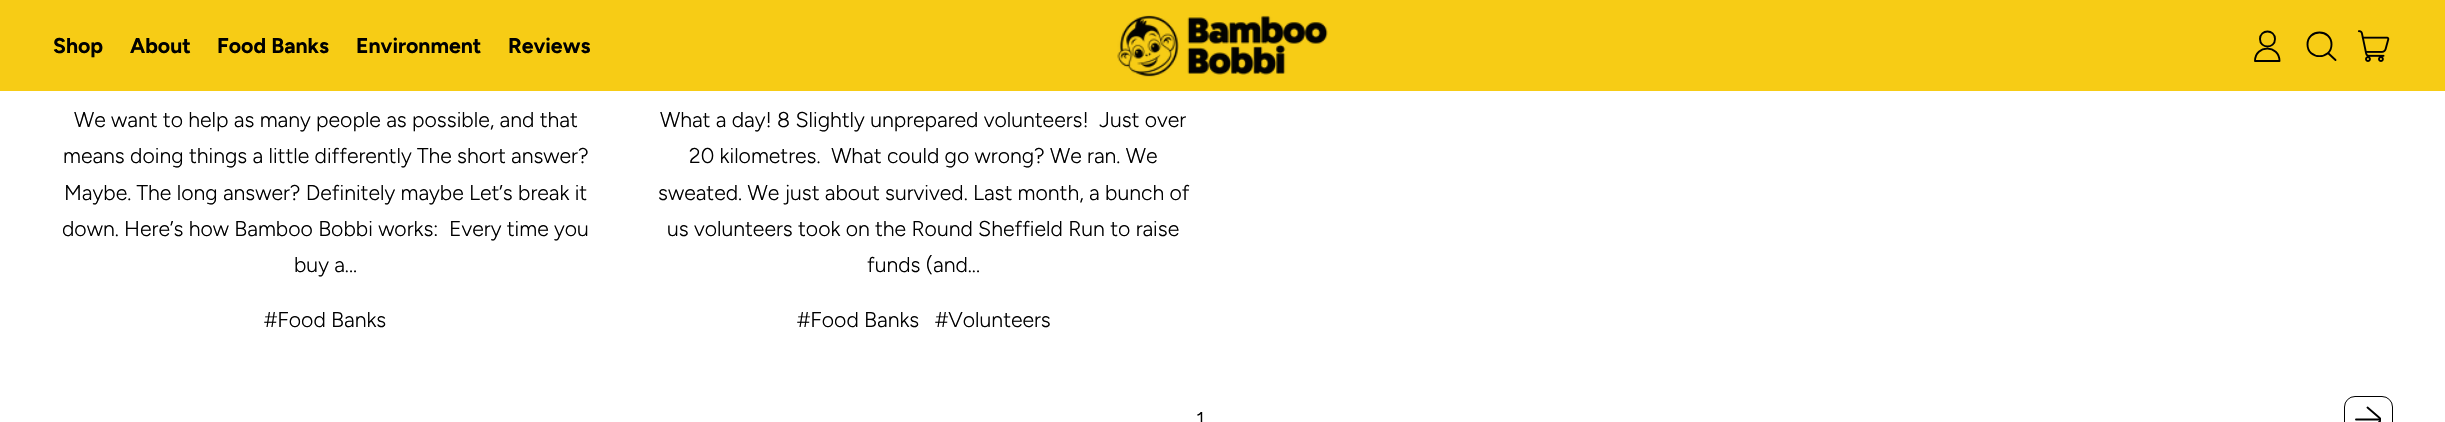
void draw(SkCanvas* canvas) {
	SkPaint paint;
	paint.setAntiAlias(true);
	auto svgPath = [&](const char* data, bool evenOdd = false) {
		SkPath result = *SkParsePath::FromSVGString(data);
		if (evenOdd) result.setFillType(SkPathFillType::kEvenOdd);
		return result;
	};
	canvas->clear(0xffffffff);
	paint.setColor(0xfff7cc15);
	canvas->drawRect(SkRect::MakeXYWH(0, 0, 2445, 91), paint);
	SkFont f1(fontMgr->matchFamilyStyle("Figtree", SkFontStyle::Bold()), 21.25);
	f1.setSubpixel(true);
	paint.setColor(0xff000000);
	canvas->drawString("Shop", 53, 53, f1, paint);
	canvas->drawString("About", 130, 53, f1, paint);
	canvas->drawString("Food Banks", 217, 53, f1, paint);
	canvas->drawString("Environment", 356, 53, f1, paint);
	canvas->drawString("Reviews", 508, 53, f1, paint);
	canvas->drawImageRect(SkImages::DeferredFromEncodedData(SkData::MakeFromFileName("img1.png")), SkRect::MakeXYWH(1117, 15, 211, 62), SkSamplingOptions());
	paint.setStroke(true);
	paint.setStrokeWidth(1.9);
	paint.setStrokeCap(SkPaint::kRound_Cap);
	paint.setStrokeJoin(SkPaint::kRound_Join);
	canvas->drawPath(svgPath("M2260 39C2260 49 2275 49 2275 39C2275 29 2260 29 2260 39ZM2255 61C2255 44.5 2279.5 44.5 2279.5 61Z"), paint);
	canvas->drawPath(svgPath("M2307.5 44.5C2307.5 60 2331.5 60 2331.5 44.5C2331.5 28.5 2307.5 28.5 2307.5 44.5ZM2335.5 60L2328 53"), paint);
	canvas->drawImageRect(SkImages::DeferredFromEncodedData(SkData::MakeFromFileName("img2.png")), SkRect::MakeXYWH(2357, 30, 33, 32), SkSamplingOptions());
	SkFont f2(fontMgr->matchFamilyStyle("Figtree", SkFontStyle(300, SkFontStyle::kNormal_Width, SkFontStyle::kUpright_Slant)), 21.25);
	f2.setSubpixel(true);
	paint.setStroke(false);
	canvas->drawString("We want to help as many people as possible, and that", 74, 127, f2, paint);
	canvas->drawString("means doing things a little differently The short answer?", 63, 163, f2, paint);
	canvas->drawString("Maybe. The long answer? Definitely maybe Let’s break it", 64, 200, f2, paint);
	canvas->drawString("down. Here’s how Bamboo Bobbi works:  Every time you", 62, 236, f2, paint);
	canvas->drawString("buy a...", 294, 272, f2, paint);
	canvas->drawString("#Food Banks", 264, 327, f2, paint);
	canvas->drawString("What a day! 8 Slightly unprepared volunteers!  Just over", 660, 127, f2, paint);
	canvas->drawString("20 kilometres.  What could go wrong? We ran. We", 689, 163, f2, paint);
	canvas->drawString("sweated. We just about survived. Last month, a bunch of", 658, 200, f2, paint);
	canvas->drawString("us volunteers took on the Round Sheffield Run to raise", 667, 236, f2, paint);
	canvas->drawString("funds (and...", 867, 272, f2, paint);
	canvas->drawString("#Food Banks", 797, 327, f2, paint);
	canvas->drawString("#Volunteers", 935, 327, f2, paint);
	canvas->drawString("1", 1196, 427, f2, paint);
	paint.setStroke(true);
	paint.setStrokeWidth(1);
	paint.setStrokeCap(SkPaint::kButt_Cap);
	paint.setStrokeJoin(SkPaint::kMiter_Join);
	canvas->drawRoundRect(SkRect::MakeXYWH(2344.5, 396.5, 48, 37), 10.5, 10.5, paint);
	canvas->save();
	canvas->clipRect(SkRect::MakeXYWH(2355, 406, 26, 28));
	paint.setStrokeWidth(1.9);
	paint.setStrokeCap(SkPaint::kRound_Cap);
	paint.setStrokeJoin(SkPaint::kRound_Join);
	canvas->drawPath(svgPath("M2381 419.5H2356M2367.5 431.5L2378.5 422.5C2382 419.5 2382 420 2378.5 417L2367.5 407.5"), paint);
	canvas->restore();
}
